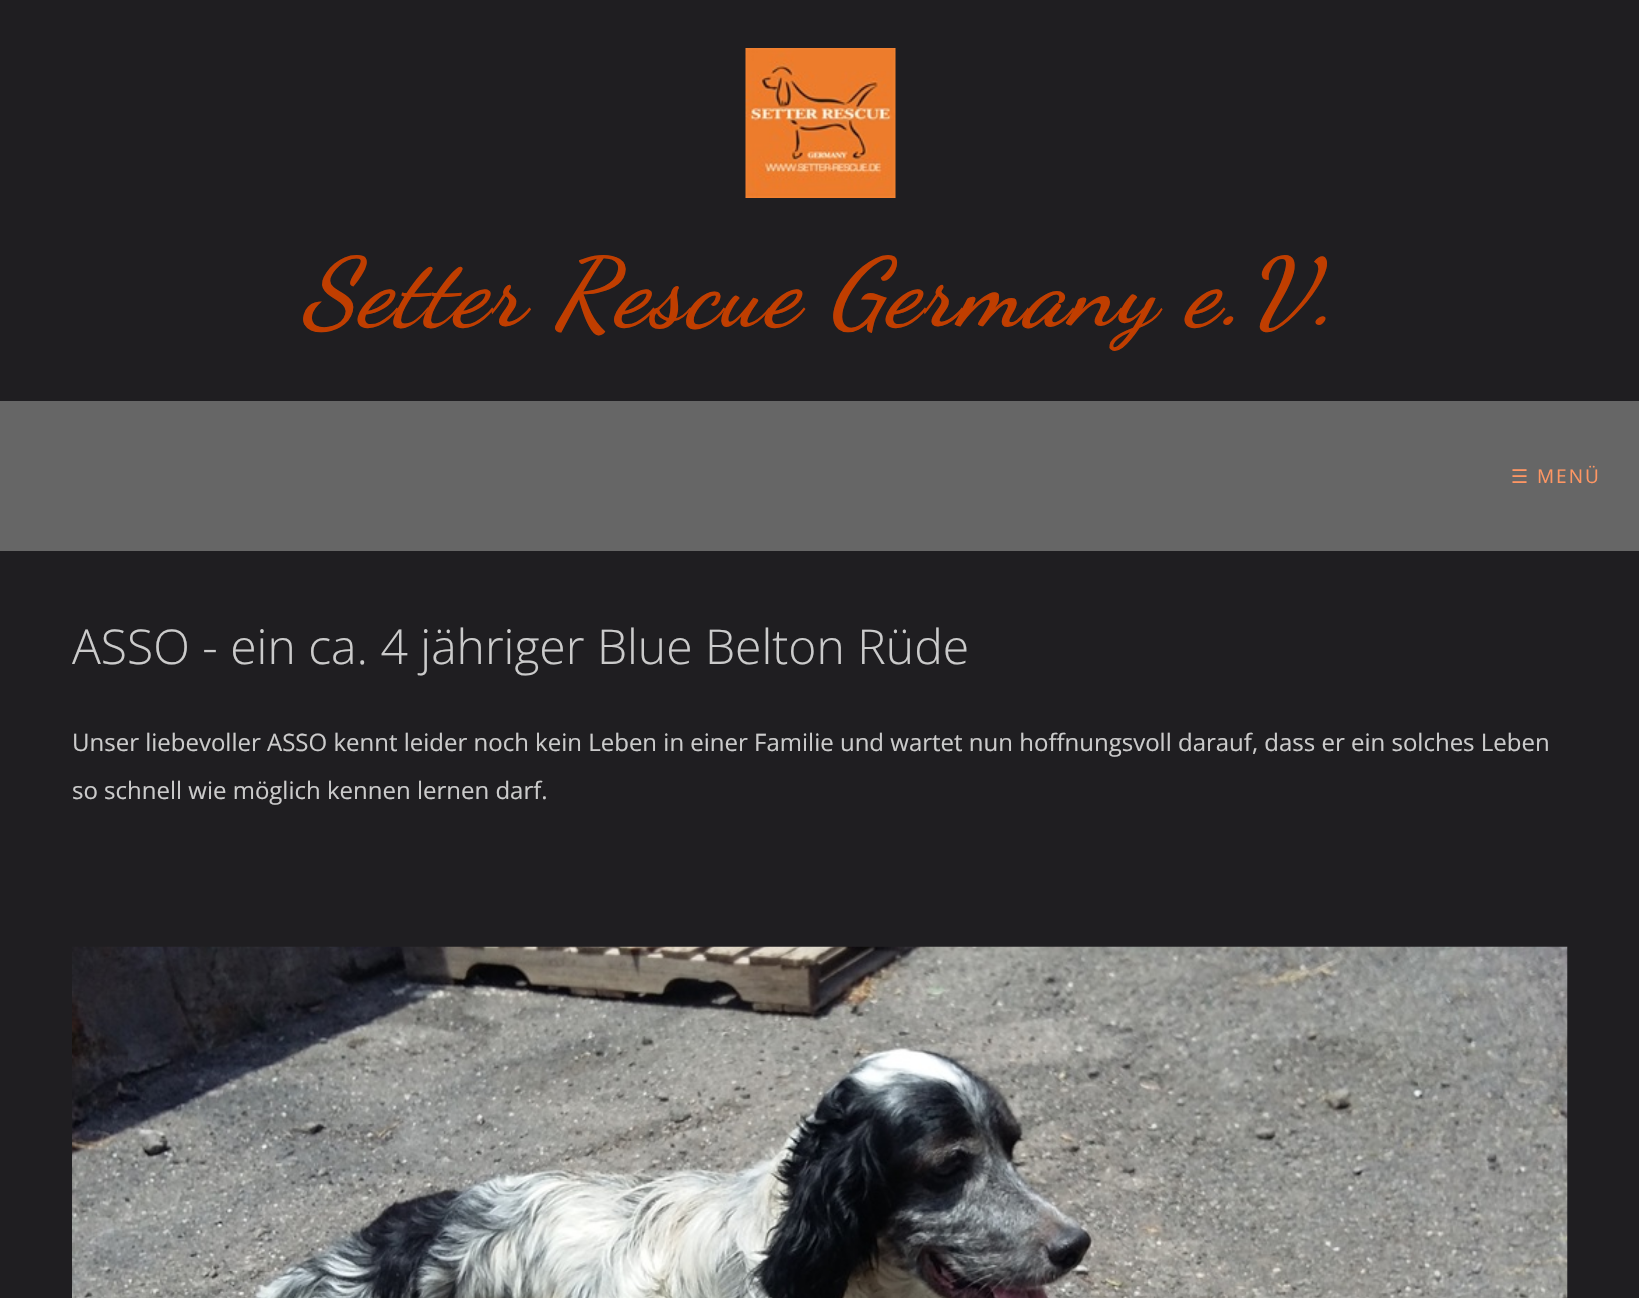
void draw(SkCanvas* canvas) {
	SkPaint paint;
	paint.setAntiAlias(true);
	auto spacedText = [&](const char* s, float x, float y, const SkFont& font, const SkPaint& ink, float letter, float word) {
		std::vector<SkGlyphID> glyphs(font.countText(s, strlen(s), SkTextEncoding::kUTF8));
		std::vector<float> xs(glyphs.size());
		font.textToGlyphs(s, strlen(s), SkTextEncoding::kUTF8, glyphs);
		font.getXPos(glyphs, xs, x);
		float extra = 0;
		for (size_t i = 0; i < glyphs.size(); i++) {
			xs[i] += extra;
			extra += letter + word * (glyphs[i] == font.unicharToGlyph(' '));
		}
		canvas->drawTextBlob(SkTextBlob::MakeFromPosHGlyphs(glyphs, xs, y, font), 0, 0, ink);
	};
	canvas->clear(0xff1f1e21);
	canvas->drawImageRect(SkImages::DeferredFromEncodedData(SkData::MakeFromFileName("img1.png")), SkRect::MakeXYWH(745, 48, 151, 150), SkSamplingOptions());
	SkFont f1(fontMgr->matchFamilyStyle("Dancing Script", SkFontStyle::BoldItalic()), 96);
	f1.setSubpixel(true);
	paint.setColor(0xffc03e00);
	spacedText("Setter Rescue Germany e.V.", 301, 324, f1, paint, 2.4, 0);
	paint.setColor(0xff666666);
	canvas->drawRect(SkRect::MakeXYWH(0, 401, 1639, 150), paint);
	SkFont f2(fontMgr->matchFamilyStyle("DejaVu Sans", SkFontStyle::Normal()), 19);
	f2.setSubpixel(true);
	paint.setColor(0xffff9663);
	spacedText("☰", 1511, 483, f2, paint, 2, 0);
	SkFont f3(fontMgr->matchFamilyStyle("Open Sans", SkFontStyle::Normal()), 19);
	f3.setSubpixel(true);
	spacedText("MENÜ", 1537, 483, f3, paint, 2, 0);
	SkFont f4(fontMgr->matchFamilyStyle("Open Sans", SkFontStyle(300, SkFontStyle::kNormal_Width, SkFontStyle::kUpright_Slant)), 48);
	f4.setSubpixel(true);
	paint.setColor(0xffcbcbcb);
	canvas->drawString("ASSO - ein ca. 4 jähriger Blue Belton Rüde", 72, 664, f4, paint);
	SkFont f5(fontMgr->matchFamilyStyle("Open Sans", SkFontStyle::Normal()), 24);
	f5.setSubpixel(true);
	canvas->drawString("Unser liebevoller ASSO kennt leider noch kein Leben in einer Familie und wartet nun hoffnungsvoll darauf, dass er ein solches Leben", 72, 751, f5, paint);
	canvas->drawString("so schnell wie möglich kennen lernen darf.", 72, 799, f5, paint);
	canvas->drawImageRect(SkImages::DeferredFromEncodedData(SkData::MakeFromFileName("img2.png")), SkRect::MakeXYWH(72, 946, 1496, 352), SkSamplingOptions());
}
